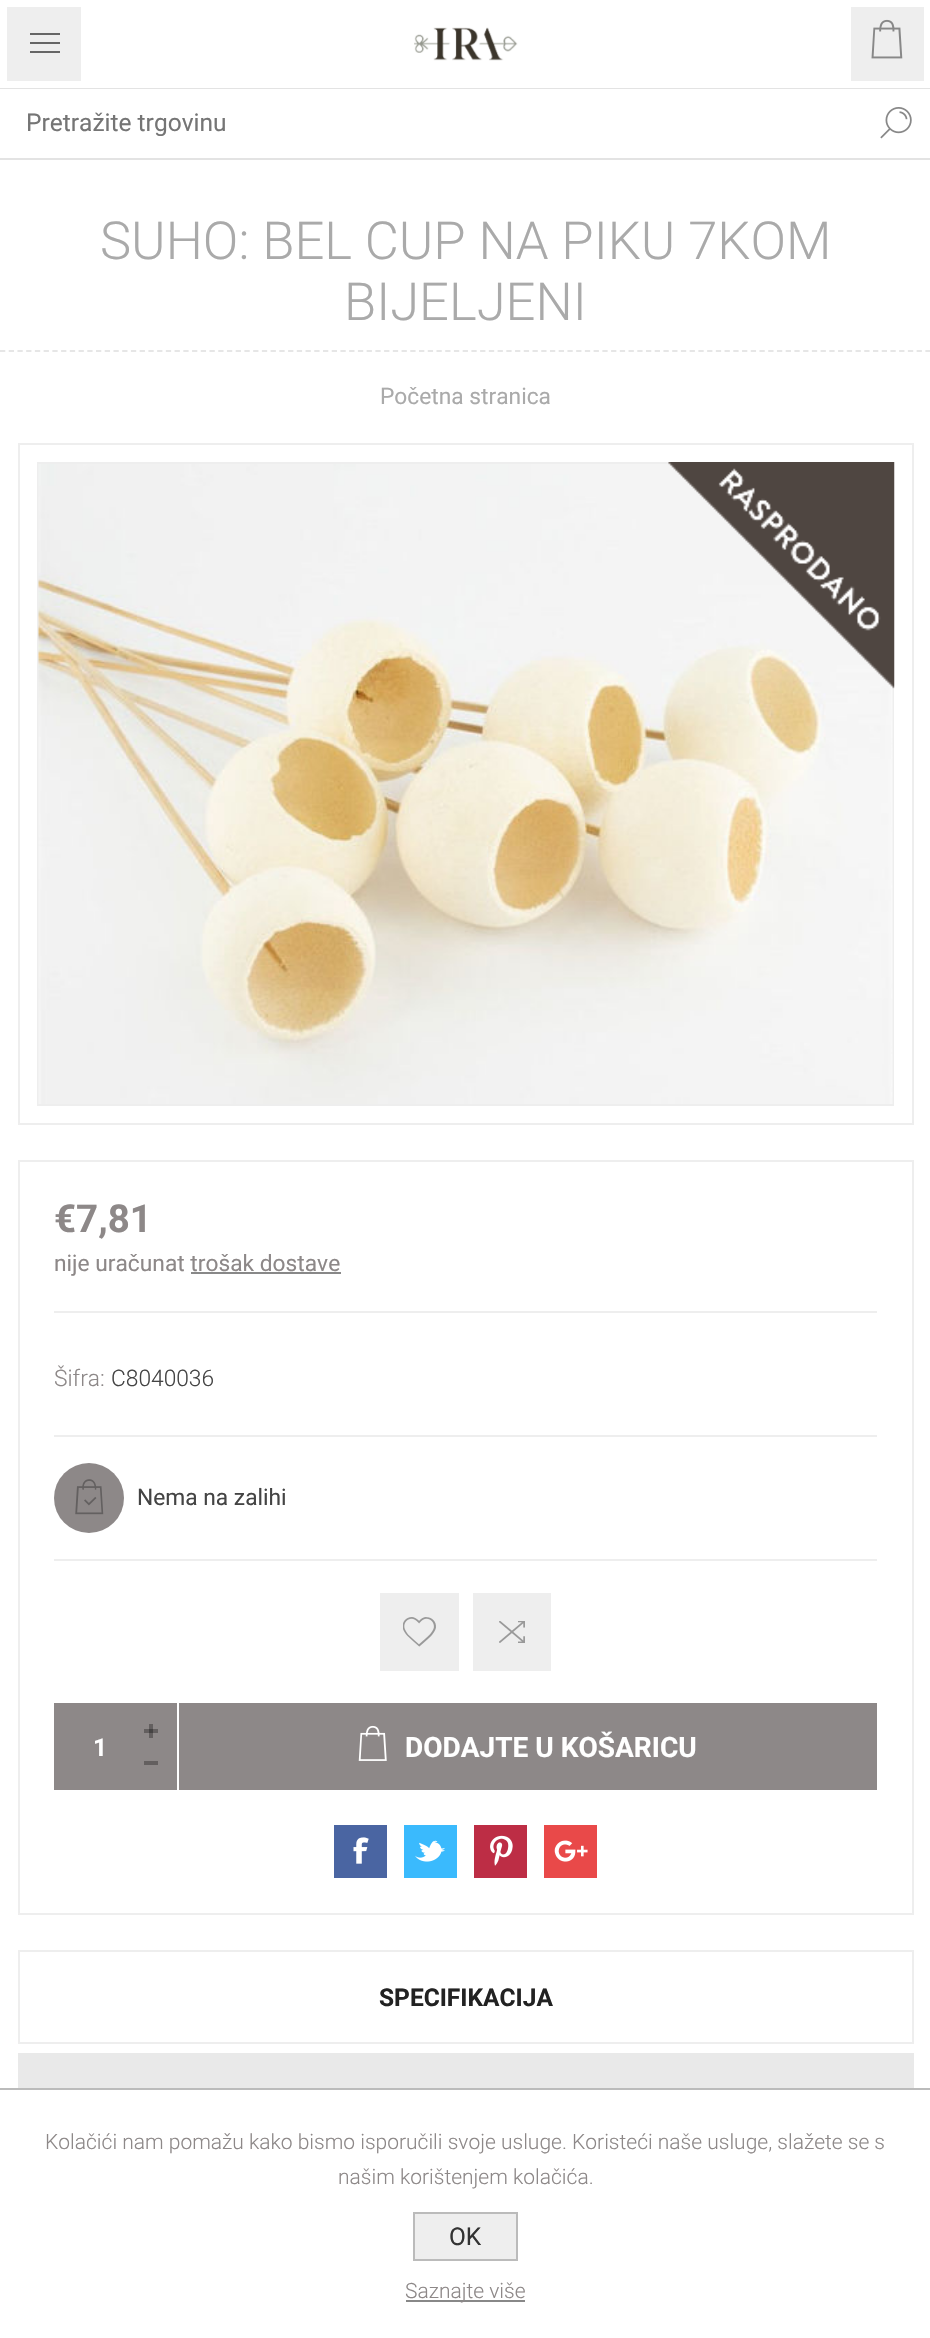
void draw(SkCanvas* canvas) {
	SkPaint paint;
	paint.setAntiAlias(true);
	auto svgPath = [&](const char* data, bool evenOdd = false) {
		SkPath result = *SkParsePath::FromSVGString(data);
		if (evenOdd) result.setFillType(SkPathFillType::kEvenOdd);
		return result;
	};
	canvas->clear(0xffffffff);
	paint.setColor(0xffeeeeee);
	canvas->drawRect(SkRect::MakeXYWH(7, 7, 74, 74), paint);
	paint.setColor(0xff666666);
	canvas->drawRect(SkRect::MakeXYWH(30, 33, 30, 2), paint);
	canvas->drawRect(SkRect::MakeXYWH(30, 42, 30, 2), paint);
	canvas->drawRect(SkRect::MakeXYWH(30, 51, 30, 2), paint);
	paint.setColor(0xffeeeeee);
	canvas->drawRect(SkRect::MakeXYWH(851, 7, 73, 74), paint);
	canvas->drawImageRect(SkImages::DeferredFromEncodedData(SkData::MakeFromFileName("img1.png")), SkRect::MakeXYWH(871, 19, 32, 40), SkSamplingOptions());
	paint.setColor(0xffe3e3e3);
	canvas->drawRect(SkRect::MakeXYWH(0, 88, 930, 1), paint);
	canvas->drawImageRect(SkImages::DeferredFromEncodedData(SkData::MakeFromFileName("img2.png")), SkRect::MakeXYWH(414, 27, 104, 34), SkSamplingOptions());
	canvas->drawRect(SkRect::MakeXYWH(0, 158, 930, 2), paint);
	SkFont f1(fontMgr->matchFamilyStyle("Roboto", SkFontStyle::Normal()), 24.5);
	f1.setSubpixel(true);
	paint.setColor(0xff757575);
	canvas->drawString("Pretražite trgovinu", 26, 131, f1, paint);
	canvas->drawImageRect(SkImages::DeferredFromEncodedData(SkData::MakeFromFileName("img3.png")), SkRect::MakeXYWH(880, 107, 32, 32), SkSamplingOptions());
	paint.setStroke(true);
	paint.setStrokeWidth(1.8);
	paint.setColor(0xffe6e6e6);
	paint.setPathEffect(SkDashPathEffect::Make({{5.25f, 3.48f}}, 0));
	canvas->drawPath(svgPath("M0 351H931"), paint);
	paint.setPathEffect(nullptr);
	SkFont f2(fontMgr->matchFamilyStyle("Roboto", SkFontStyle(300, SkFontStyle::kNormal_Width, SkFontStyle::kUpright_Slant)), 52.5);
	f2.setSubpixel(true);
	paint.setStroke(false);
	paint.setColor(0xffaaaaaa);
	canvas->drawString("SUHO: BEL CUP NA PIKU 7KOM", 100, 259, f2, paint);
	canvas->drawString("BIJELJENI", 344, 320, f2, paint);
	SkFont f3(fontMgr->matchFamilyStyle("Roboto", SkFontStyle::Normal()), 22.75);
	f3.setSubpixel(true);
	canvas->drawString("Početna stranica", 380, 404, f3, paint);
	paint.setStroke(true);
	paint.setStrokeWidth(2);
	paint.setColor(0xffeeeeee);
	canvas->drawRect(SkRect::MakeXYWH(19, 444, 894, 680), paint);
	canvas->drawRect(SkRect::MakeXYWH(38, 463, 855, 642), paint);
	canvas->drawImageRect(SkImages::DeferredFromEncodedData(SkData::MakeFromFileName("img4.png")), SkRect::MakeXYWH(38, 464, 855, 640), SkSamplingOptions());
	canvas->drawImageRect(SkImages::DeferredFromEncodedData(SkData::MakeFromFileName("img5.png")), SkRect::MakeXYWH(668, 462, 227, 227), SkSamplingOptions());
	canvas->drawRect(SkRect::MakeXYWH(19, 1161, 894, 753), paint);
	paint.setStroke(false);
	canvas->drawRect(SkRect::MakeXYWH(54, 1311, 823, 2), paint);
	SkFont f4(fontMgr->matchFamilyStyle("Roboto", SkFontStyle::Bold()), 38.5);
	f4.setSubpixel(true);
	paint.setColor(0xff8d8888);
	canvas->drawString("€7,81", 54, 1232, f4, paint);
	canvas->drawString("nije uračunat trošak dostave", 54, 1271, f3, paint);
	paint.setColor(0xff888888);
	canvas->drawRect(SkRect::MakeXYWH(191, 1272, 150, 2), paint);
	paint.setColor(0xffeeeeee);
	canvas->drawRect(SkRect::MakeXYWH(54, 1435, 823, 2), paint);
	SkFont f5(fontMgr->matchFamilyStyle("Roboto", SkFontStyle(300, SkFontStyle::kNormal_Width, SkFontStyle::kUpright_Slant)), 22.75);
	f5.setSubpixel(true);
	paint.setColor(0xff8d8888);
	canvas->drawString("Šifra:", 54, 1386, f5, paint);
	paint.setColor(0xff444444);
	canvas->drawString("C8040036", 111, 1386, f5, paint);
	paint.setColor(0xffeeeeee);
	canvas->drawRect(SkRect::MakeXYWH(54, 1559, 823, 2), paint);
	paint.setColor(0xff8d8888);
	canvas->drawCircle(89, 1498, 35, paint);
	canvas->drawImageRect(SkImages::DeferredFromEncodedData(SkData::MakeFromFileName("img6.png")), SkRect::MakeXYWH(75, 1479, 29, 36), SkSamplingOptions());
	paint.setColor(0xff444444);
	canvas->drawString("Nema na zalihi", 137, 1505, f3, paint);
	paint.setColor(0xffeeeeee);
	canvas->drawRect(SkRect::MakeXYWH(380, 1593, 79, 78), paint);
	canvas->drawImageRect(SkImages::DeferredFromEncodedData(SkData::MakeFromFileName("img7.png")), SkRect::MakeXYWH(403, 1617, 33, 30), SkSamplingOptions());
	canvas->drawRect(SkRect::MakeXYWH(473, 1593, 78, 78), paint);
	canvas->drawImageRect(SkImages::DeferredFromEncodedData(SkData::MakeFromFileName("img8.png")), SkRect::MakeXYWH(499, 1621, 26, 22), SkSamplingOptions());
	paint.setColor(0xff8d8888);
	canvas->drawRect(SkRect::MakeXYWH(54, 1703, 70, 87), paint);
	SkFont f6(fontMgr->matchFamilyStyle("Roboto", SkFontStyle::Bold()), 24.5);
	f6.setSubpixel(true);
	paint.setColor(0xffffffff);
	canvas->drawString("1", 93, 1756, f6, paint);
	paint.setColor(0xff8d8888);
	canvas->drawRect(SkRect::MakeXYWH(124, 1703, 53, 87), paint);
	paint.setColor(0xff635f5f);
	canvas->drawRect(SkRect::MakeXYWH(149, 1724, 4, 14), paint);
	canvas->drawRect(SkRect::MakeXYWH(144, 1729, 14, 4), paint);
	paint.setColor(0xff454343);
	canvas->drawRect(SkRect::MakeXYWH(149, 1729, 4, 4), paint);
	paint.setColor(0xff635f5f);
	canvas->drawRect(SkRect::MakeXYWH(144, 1761, 14, 4), paint);
	paint.setColor(0xff8d8888);
	canvas->drawRect(SkRect::MakeXYWH(179, 1703, 698, 87), paint);
	canvas->drawImageRect(SkImages::DeferredFromEncodedData(SkData::MakeFromFileName("img9.png")), SkRect::MakeXYWH(358, 1725, 29, 36), SkSamplingOptions());
	SkFont f7(fontMgr->matchFamilyStyle("Roboto", SkFontStyle::Bold()), 28);
	f7.setSubpixel(true);
	paint.setColor(0xffffffff);
	canvas->drawString("DODAJTE U KOŠARICU", 405, 1757, f7, paint);
	paint.setColor(0xff4a65a2);
	canvas->drawRect(SkRect::MakeXYWH(334, 1825, 53, 53), paint);
	canvas->drawImageRect(SkImages::DeferredFromEncodedData(SkData::MakeFromFileName("img10.png")), SkRect::MakeXYWH(353, 1837, 16, 27), SkSamplingOptions());
	paint.setColor(0xff3abafd);
	canvas->drawRect(SkRect::MakeXYWH(404, 1825, 53, 53), paint);
	canvas->drawImageRect(SkImages::DeferredFromEncodedData(SkData::MakeFromFileName("img11.png")), SkRect::MakeXYWH(415, 1840, 30, 22), SkSamplingOptions());
	paint.setColor(0xffbd2d45);
	canvas->drawRect(SkRect::MakeXYWH(474, 1825, 53, 53), paint);
	canvas->drawImageRect(SkImages::DeferredFromEncodedData(SkData::MakeFromFileName("img12.png")), SkRect::MakeXYWH(490, 1835, 23, 31), SkSamplingOptions());
	paint.setColor(0xffe94949);
	canvas->drawRect(SkRect::MakeXYWH(544, 1825, 53, 53), paint);
	canvas->drawImageRect(SkImages::DeferredFromEncodedData(SkData::MakeFromFileName("img13.png")), SkRect::MakeXYWH(554, 1840, 34, 22), SkSamplingOptions());
	paint.setStroke(true);
	paint.setColor(0xffeeeeee);
	canvas->drawRect(SkRect::MakeXYWH(19, 1951, 894, 92), paint);
	paint.setStroke(false);
	paint.setColor(0xff222222);
	canvas->drawString("SPECIFIKACIJA", 379, 2006, f6, paint);
	paint.setColor(0xffe9e9e9);
	canvas->drawRect(SkRect::MakeXYWH(18, 2053, 896, 35), paint);
	paint.setColor(0xffbbbbbb);
	canvas->drawRect(SkRect::MakeXYWH(0, 2088, 930, 2), paint);
	SkFont f8(fontMgr->matchFamilyStyle("Roboto", SkFontStyle(300, SkFontStyle::kNormal_Width, SkFontStyle::kUpright_Slant)), 21);
	f8.setSubpixel(true);
	paint.setColor(0xff8d8888);
	canvas->drawString("Kolačići nam pomažu kako bismo isporučili svoje usluge. Koristeći naše usluge, slažete se s", 45, 2149, f8, paint);
	canvas->drawString("našim korištenjem kolačića.", 338, 2184, f8, paint);
	paint.setColor(0xffeeeeee);
	canvas->drawRect(SkRect::MakeXYWH(414, 2213, 103, 47), paint);
	paint.setStroke(true);
	paint.setColor(0xffbbbbbb);
	canvas->drawRect(SkRect::MakeXYWH(414, 2213, 103, 47), paint);
	paint.setStroke(false);
	paint.setColor(0xff333333);
	canvas->drawString("OK", 449, 2245, f1, paint);
	paint.setColor(0xff888888);
	canvas->drawRect(SkRect::MakeXYWH(406, 2300, 119, 2), paint);
	paint.setColor(0xff8d8888);
	canvas->drawString("Saznajte više", 405, 2298, f8, paint);
}
